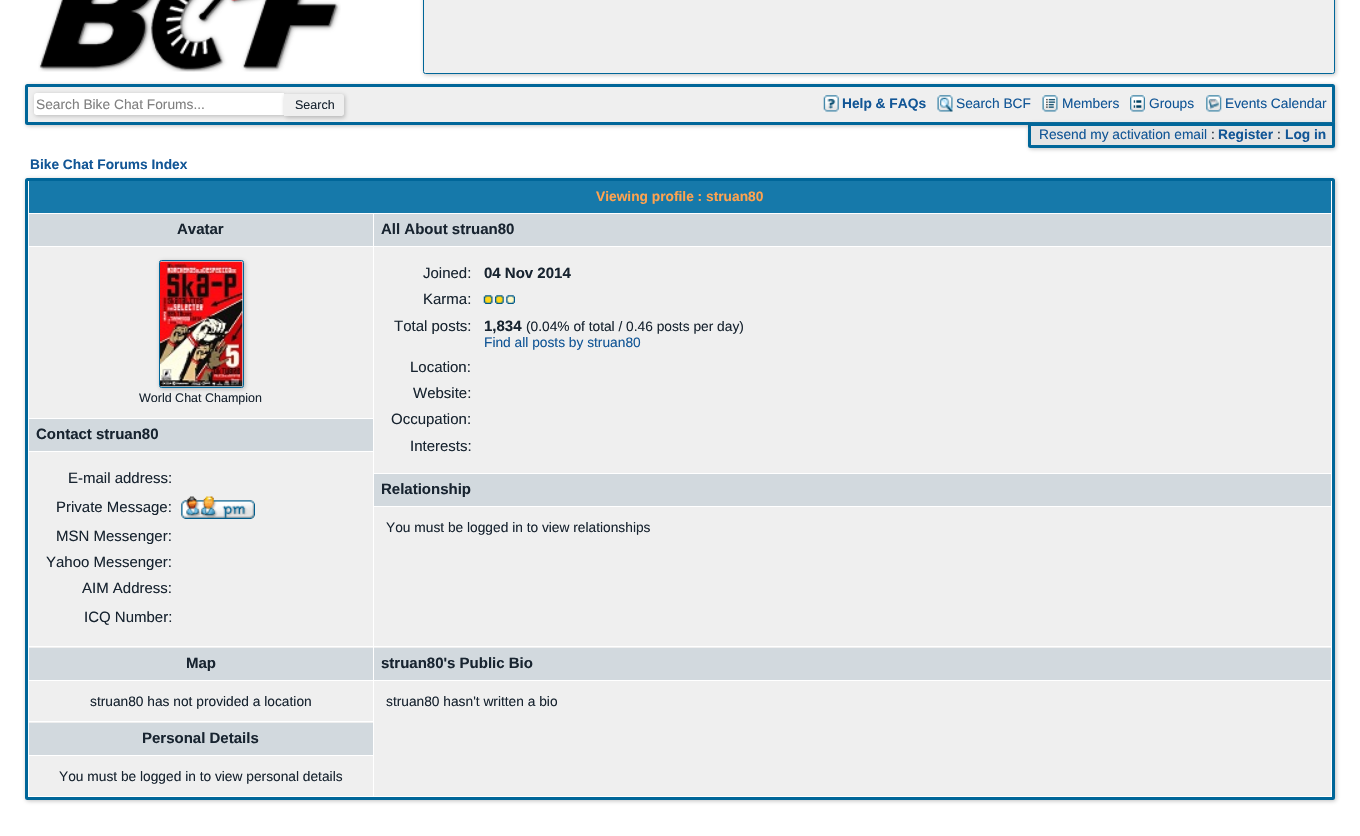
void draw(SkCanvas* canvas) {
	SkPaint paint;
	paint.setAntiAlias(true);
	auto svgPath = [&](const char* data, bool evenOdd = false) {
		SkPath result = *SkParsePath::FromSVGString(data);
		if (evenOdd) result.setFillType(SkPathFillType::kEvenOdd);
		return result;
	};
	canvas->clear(0xffffffff);
	canvas->drawImageRect(SkImages::DeferredFromEncodedData(SkData::MakeFromFileName("img1.png")), SkRect::MakeXYWH(38, 0, 303, 72), SkSamplingOptions());
	paint.setColor(0x80808080);
	paint.setMaskFilter(SkMaskFilter::MakeBlur(kNormal_SkBlurStyle, 2));
	canvas->drawRoundRect(SkRect::MakeXYWH(424, -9, 912, 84), 2.5, 2.5, paint);
	paint.setMaskFilter(nullptr);
	paint.setColor(0xffefefef);
	canvas->drawRoundRect(SkRect::MakeXYWH(423.5, -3.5, 911, 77), 2, 2, paint);
	paint.setStroke(true);
	paint.setStrokeWidth(1);
	paint.setColor(0xff006699);
	canvas->drawRoundRect(SkRect::MakeXYWH(423.5, -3.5, 911, 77), 2, 2, paint);
	paint.setStroke(false);
	paint.setColor(0x80808080);
	paint.setMaskFilter(SkMaskFilter::MakeBlur(kNormal_SkBlurStyle, 2));
	canvas->drawRoundRect(SkRect::MakeXYWH(26, 85, 1310, 41), 2.5, 2.5, paint);
	paint.setMaskFilter(nullptr);
	paint.setColor(0xffefefef);
	canvas->drawPath(svgPath("M27.5 85.5H1332.5C1333 85.5 1333.5 86 1333.5 86.5V123.5H27.5C27 123.5 26.5 123 26.5 122.5V86.5C26.5 86 27 85.5 27.5 85.5Z"), paint);
	paint.setStroke(true);
	paint.setStrokeWidth(3);
	paint.setColor(0xff006699);
	canvas->drawPath(svgPath("M27.5 85.5H1332.5C1333 85.5 1333.5 86 1333.5 86.5V123.5H27.5C27 123.5 26.5 123 26.5 122.5V86.5C26.5 86 27 85.5 27.5 85.5Z"), paint);
	paint.setStroke(false);
	paint.setColor(0x80808080);
	paint.setMaskFilter(SkMaskFilter::MakeBlur(kNormal_SkBlurStyle, 2));
	canvas->drawRoundRect(SkRect::MakeXYWH(35, 94, 250, 22), 2.5, 2.5, paint);
	paint.setMaskFilter(nullptr);
	paint.setColor(0xffffffff);
	canvas->drawPath(svgPath("M36.5 93H284V115H36.5C35 115 34 114 34 112.5V95.5C34 94 35 93 36.5 93Z"), paint);
	SkFont f1(fontMgr->matchFamilyStyle("Liberation Sans", SkFontStyle::Normal()), 13.75);
	f1.setSubpixel(true);
	paint.setColor(0xff808080);
	canvas->drawString("Search Bike Chat Forums...", 36, 109, f1, paint);
	paint.setColor(0x80808080);
	paint.setMaskFilter(SkMaskFilter::MakeBlur(kNormal_SkBlurStyle, 2));
	canvas->drawRoundRect(SkRect::MakeXYWH(285, 95, 60, 23), 2.5, 2.5, paint);
	paint.setMaskFilter(nullptr);
	paint.setColor(0xffefefef);
	canvas->drawPath(svgPath("M284 94H341.5C343 94 344 95 344 96.5V113.5C344 115 343 116 341.5 116H284Z"), paint);
	SkFont f2(fontMgr->matchFamilyStyle("Liberation Sans", SkFontStyle::Normal()), 12.5);
	f2.setSubpixel(true);
	paint.setColor(0xff182430);
	canvas->drawString("Search", 295, 109, f2, paint);
	canvas->drawImageRect(SkImages::DeferredFromEncodedData(SkData::MakeFromFileName("img2.png")), SkRect::MakeXYWH(823, 95, 16, 17), SkSamplingOptions());
	SkFont f3(fontMgr->matchFamilyStyle("Liberation Sans", SkFontStyle::Bold()), 13.75);
	f3.setSubpixel(true);
	paint.setColor(0xff125696);
	canvas->drawString("Help & FAQs", 842, 108, f3, paint);
	canvas->drawImageRect(SkImages::DeferredFromEncodedData(SkData::MakeFromFileName("img3.png")), SkRect::MakeXYWH(937, 95, 16, 17), SkSamplingOptions());
	canvas->drawString("Search BCF", 956, 108, f1, paint);
	canvas->drawImageRect(SkImages::DeferredFromEncodedData(SkData::MakeFromFileName("img4.png")), SkRect::MakeXYWH(1042, 95, 16, 17), SkSamplingOptions());
	canvas->drawString("Members", 1062, 108, f1, paint);
	canvas->drawImageRect(SkImages::DeferredFromEncodedData(SkData::MakeFromFileName("img5.png")), SkRect::MakeXYWH(1130, 95, 15, 17), SkSamplingOptions());
	canvas->drawString("Groups", 1149, 108, f1, paint);
	canvas->drawImageRect(SkImages::DeferredFromEncodedData(SkData::MakeFromFileName("img6.png")), SkRect::MakeXYWH(1206, 95, 16, 17), SkSamplingOptions());
	canvas->drawString("Events Calendar", 1225, 108, f1, paint);
	paint.setColor(0x80808080);
	paint.setMaskFilter(SkMaskFilter::MakeBlur(kNormal_SkBlurStyle, 2));
	canvas->drawRoundRect(SkRect::MakeXYWH(1029, 124, 307, 25), 2.5, 2.5, paint);
	paint.setMaskFilter(nullptr);
	paint.setColor(0xffe5e5e5);
	canvas->drawPath(svgPath("M1029.5 124.5H1333.5V145.5C1333.5 146 1333 146.5 1332.5 146.5H1030.5C1030 146.5 1029.5 146 1029.5 145.5Z"), paint);
	paint.setStroke(true);
	paint.setColor(0xff006699);
	canvas->drawPath(svgPath("M1029.5 124.5H1333.5V145.5C1333.5 146 1333 146.5 1332.5 146.5H1030.5C1030 146.5 1029.5 146 1029.5 145.5Z"), paint);
	paint.setStroke(false);
	paint.setColor(0xff125696);
	canvas->drawString("Resend my activation email", 1039, 139, f1, paint);
	paint.setColor(0xff182430);
	canvas->drawString(":", 1211, 139, f1, paint);
	paint.setColor(0xff125696);
	canvas->drawString("Register", 1218, 139, f3, paint);
	paint.setColor(0xff182430);
	canvas->drawString(":", 1277, 139, f1, paint);
	paint.setColor(0xff125696);
	canvas->drawString("Log in", 1285, 139, f3, paint);
	canvas->drawString("Bike Chat Forums Index", 30, 169, f3, paint);
	paint.setColor(0x80808080);
	paint.setMaskFilter(SkMaskFilter::MakeBlur(kNormal_SkBlurStyle, 2));
	canvas->drawRoundRect(SkRect::MakeXYWH(26, 179, 1310, 622), 2.5, 2.5, paint);
	paint.setMaskFilter(nullptr);
	paint.setColor(0xffffffff);
	canvas->drawRoundRect(SkRect::MakeXYWH(26.5, 179.5, 1307, 619), 1, 1, paint);
	paint.setStroke(true);
	paint.setColor(0xff006699);
	canvas->drawRoundRect(SkRect::MakeXYWH(26.5, 179.5, 1307, 619), 1, 1, paint);
	paint.setStroke(false);
	paint.setColor(0xff1679aa);
	canvas->drawRect(SkRect::MakeXYWH(29, 181, 1302, 32), paint);
	paint.setColor(0xffffa34f);
	canvas->drawString("Viewing profile : struan80", 596, 201, f3, paint);
	paint.setColor(0xffefefef);
	canvas->drawRect(SkRect::MakeXYWH(29, 247, 344, 399), paint);
	paint.setColor(0xffd2d9de);
	canvas->drawRect(SkRect::MakeXYWH(29, 214, 344, 32), paint);
	SkFont f4(fontMgr->matchFamilyStyle("Liberation Sans", SkFontStyle::Bold()), 15);
	f4.setSubpixel(true);
	paint.setColor(0xff182430);
	canvas->drawString("Avatar", 177, 234, f4, paint);
	paint.setColor(0x80808080);
	paint.setMaskFilter(SkMaskFilter::MakeBlur(kNormal_SkBlurStyle, 2));
	canvas->drawRoundRect(SkRect::MakeXYWH(160, 261, 85, 128), 2.5, 2.5, paint);
	paint.setMaskFilter(nullptr);
	paint.setColor(0xffd2d9de);
	canvas->drawRoundRect(SkRect::MakeXYWH(159.5, 260.5, 84, 127), 2, 2, paint);
	paint.setStroke(true);
	paint.setStrokeWidth(1);
	paint.setColor(0xff006699);
	canvas->drawRoundRect(SkRect::MakeXYWH(159.5, 260.5, 84, 127), 2, 2, paint);
	canvas->drawImageRect(SkImages::DeferredFromEncodedData(SkData::MakeFromFileName("img7.png")), SkRect::MakeXYWH(160, 261, 83, 126), SkSamplingOptions());
	paint.setStroke(false);
	paint.setColor(0xff182430);
	canvas->drawString("World Chat Champion", 139, 402, f2, paint);
	paint.setColor(0xffffffff);
	canvas->drawRect(SkRect::MakeXYWH(29, 418, 344, 1), paint);
	paint.setColor(0xffd2d9de);
	canvas->drawRect(SkRect::MakeXYWH(29, 419, 344, 32), paint);
	paint.setColor(0xff182430);
	canvas->drawString("Contact struan80", 36, 439, f4, paint);
	paint.setColor(0xffffffff);
	canvas->drawRect(SkRect::MakeXYWH(29, 451, 344, 1), paint);
	SkFont f5(fontMgr->matchFamilyStyle("Liberation Sans", SkFontStyle::Normal()), 15);
	f5.setSubpixel(true);
	paint.setColor(0xff182430);
	canvas->drawString("E-mail address:", 68, 483, f5, paint);
	canvas->drawString("Private Message:", 56, 512, f5, paint);
	canvas->drawImageRect(SkImages::DeferredFromEncodedData(SkData::MakeFromFileName("img8.png")), SkRect::MakeXYWH(181, 496, 74, 23), SkSamplingOptions());
	canvas->drawString("MSN Messenger:", 56, 541, f5, paint);
	canvas->drawString("Yahoo Messenger:", 46, 567, f5, paint);
	canvas->drawString("AIM Address:", 82, 593, f5, paint);
	canvas->drawString("ICQ Number:", 84, 622, f5, paint);
	paint.setColor(0xffefefef);
	canvas->drawRect(SkRect::MakeXYWH(374, 247, 957, 399), paint);
	paint.setColor(0xffd2d9de);
	canvas->drawRect(SkRect::MakeXYWH(374, 214, 957, 32), paint);
	paint.setColor(0xff182430);
	canvas->drawString("All About struan80", 381, 234, f4, paint);
	canvas->drawString("Joined:", 423, 278, f5, paint);
	canvas->drawString("04 Nov 2014", 484, 278, f4, paint);
	canvas->drawString("Karma:", 423, 304, f5, paint);
	canvas->drawImageRect(SkImages::DeferredFromEncodedData(SkData::MakeFromFileName("img9.png")), SkRect::MakeXYWH(483, 295, 10, 9), SkSamplingOptions());
	canvas->drawImageRect(SkImages::DeferredFromEncodedData(SkData::MakeFromFileName("img10.png")), SkRect::MakeXYWH(495, 295, 9, 9), SkSamplingOptions());
	canvas->drawImageRect(SkImages::DeferredFromEncodedData(SkData::MakeFromFileName("img11.png")), SkRect::MakeXYWH(506, 295, 9, 9), SkSamplingOptions());
	canvas->drawString("Total posts:", 394, 331, f5, paint);
	canvas->drawString("1,834", 484, 331, f4, paint);
	canvas->drawString("(0.04% of total / 0.46 posts per day)", 526, 331, f1, paint);
	paint.setColor(0xff125696);
	canvas->drawString("Find all posts by struan80", 484, 347, f1, paint);
	paint.setColor(0xff182430);
	canvas->drawString("Location:", 410, 372, f5, paint);
	canvas->drawString("Website:", 413, 398, f5, paint);
	canvas->drawString("Occupation:", 391, 424, f5, paint);
	canvas->drawString("Interests:", 410, 451, f5, paint);
	paint.setColor(0xffffffff);
	canvas->drawRect(SkRect::MakeXYWH(374, 473, 957, 1), paint);
	paint.setColor(0xffd2d9de);
	canvas->drawRect(SkRect::MakeXYWH(374, 474, 957, 32), paint);
	paint.setColor(0xff182430);
	canvas->drawString("Relationship", 381, 494, f4, paint);
	paint.setColor(0xffffffff);
	canvas->drawRect(SkRect::MakeXYWH(374, 506, 957, 1), paint);
	paint.setColor(0xff182430);
	canvas->drawString("You must be logged in to view relationships", 386, 532, f1, paint);
	paint.setColor(0xffefefef);
	canvas->drawRect(SkRect::MakeXYWH(29, 647, 344, 149), paint);
	paint.setColor(0xffd2d9de);
	canvas->drawRect(SkRect::MakeXYWH(29, 648, 344, 32), paint);
	paint.setColor(0xff182430);
	canvas->drawString("Map", 186, 668, f4, paint);
	paint.setColor(0xffffffff);
	canvas->drawRect(SkRect::MakeXYWH(29, 680, 344, 1), paint);
	paint.setColor(0xff182430);
	canvas->drawString("struan80 has not provided a location", 90, 706, f1, paint);
	paint.setColor(0xffffffff);
	canvas->drawRect(SkRect::MakeXYWH(29, 721, 344, 1), paint);
	paint.setColor(0xffd2d9de);
	canvas->drawRect(SkRect::MakeXYWH(29, 723, 344, 32), paint);
	paint.setColor(0xff182430);
	canvas->drawString("Personal Details", 142, 743, f4, paint);
	paint.setColor(0xffffffff);
	canvas->drawRect(SkRect::MakeXYWH(29, 755, 344, 1), paint);
	paint.setColor(0xff182430);
	canvas->drawString("You must be logged in to view personal details", 59, 781, f1, paint);
	paint.setColor(0xffefefef);
	canvas->drawRect(SkRect::MakeXYWH(374, 647, 957, 149), paint);
	paint.setColor(0xffd2d9de);
	canvas->drawRect(SkRect::MakeXYWH(374, 648, 957, 32), paint);
	paint.setColor(0xff182430);
	canvas->drawString("struan80's Public Bio", 381, 668, f4, paint);
	paint.setColor(0xffffffff);
	canvas->drawRect(SkRect::MakeXYWH(374, 680, 957, 1), paint);
	paint.setColor(0xff182430);
	canvas->drawString("struan80 hasn't written a bio", 386, 706, f1, paint);
}
